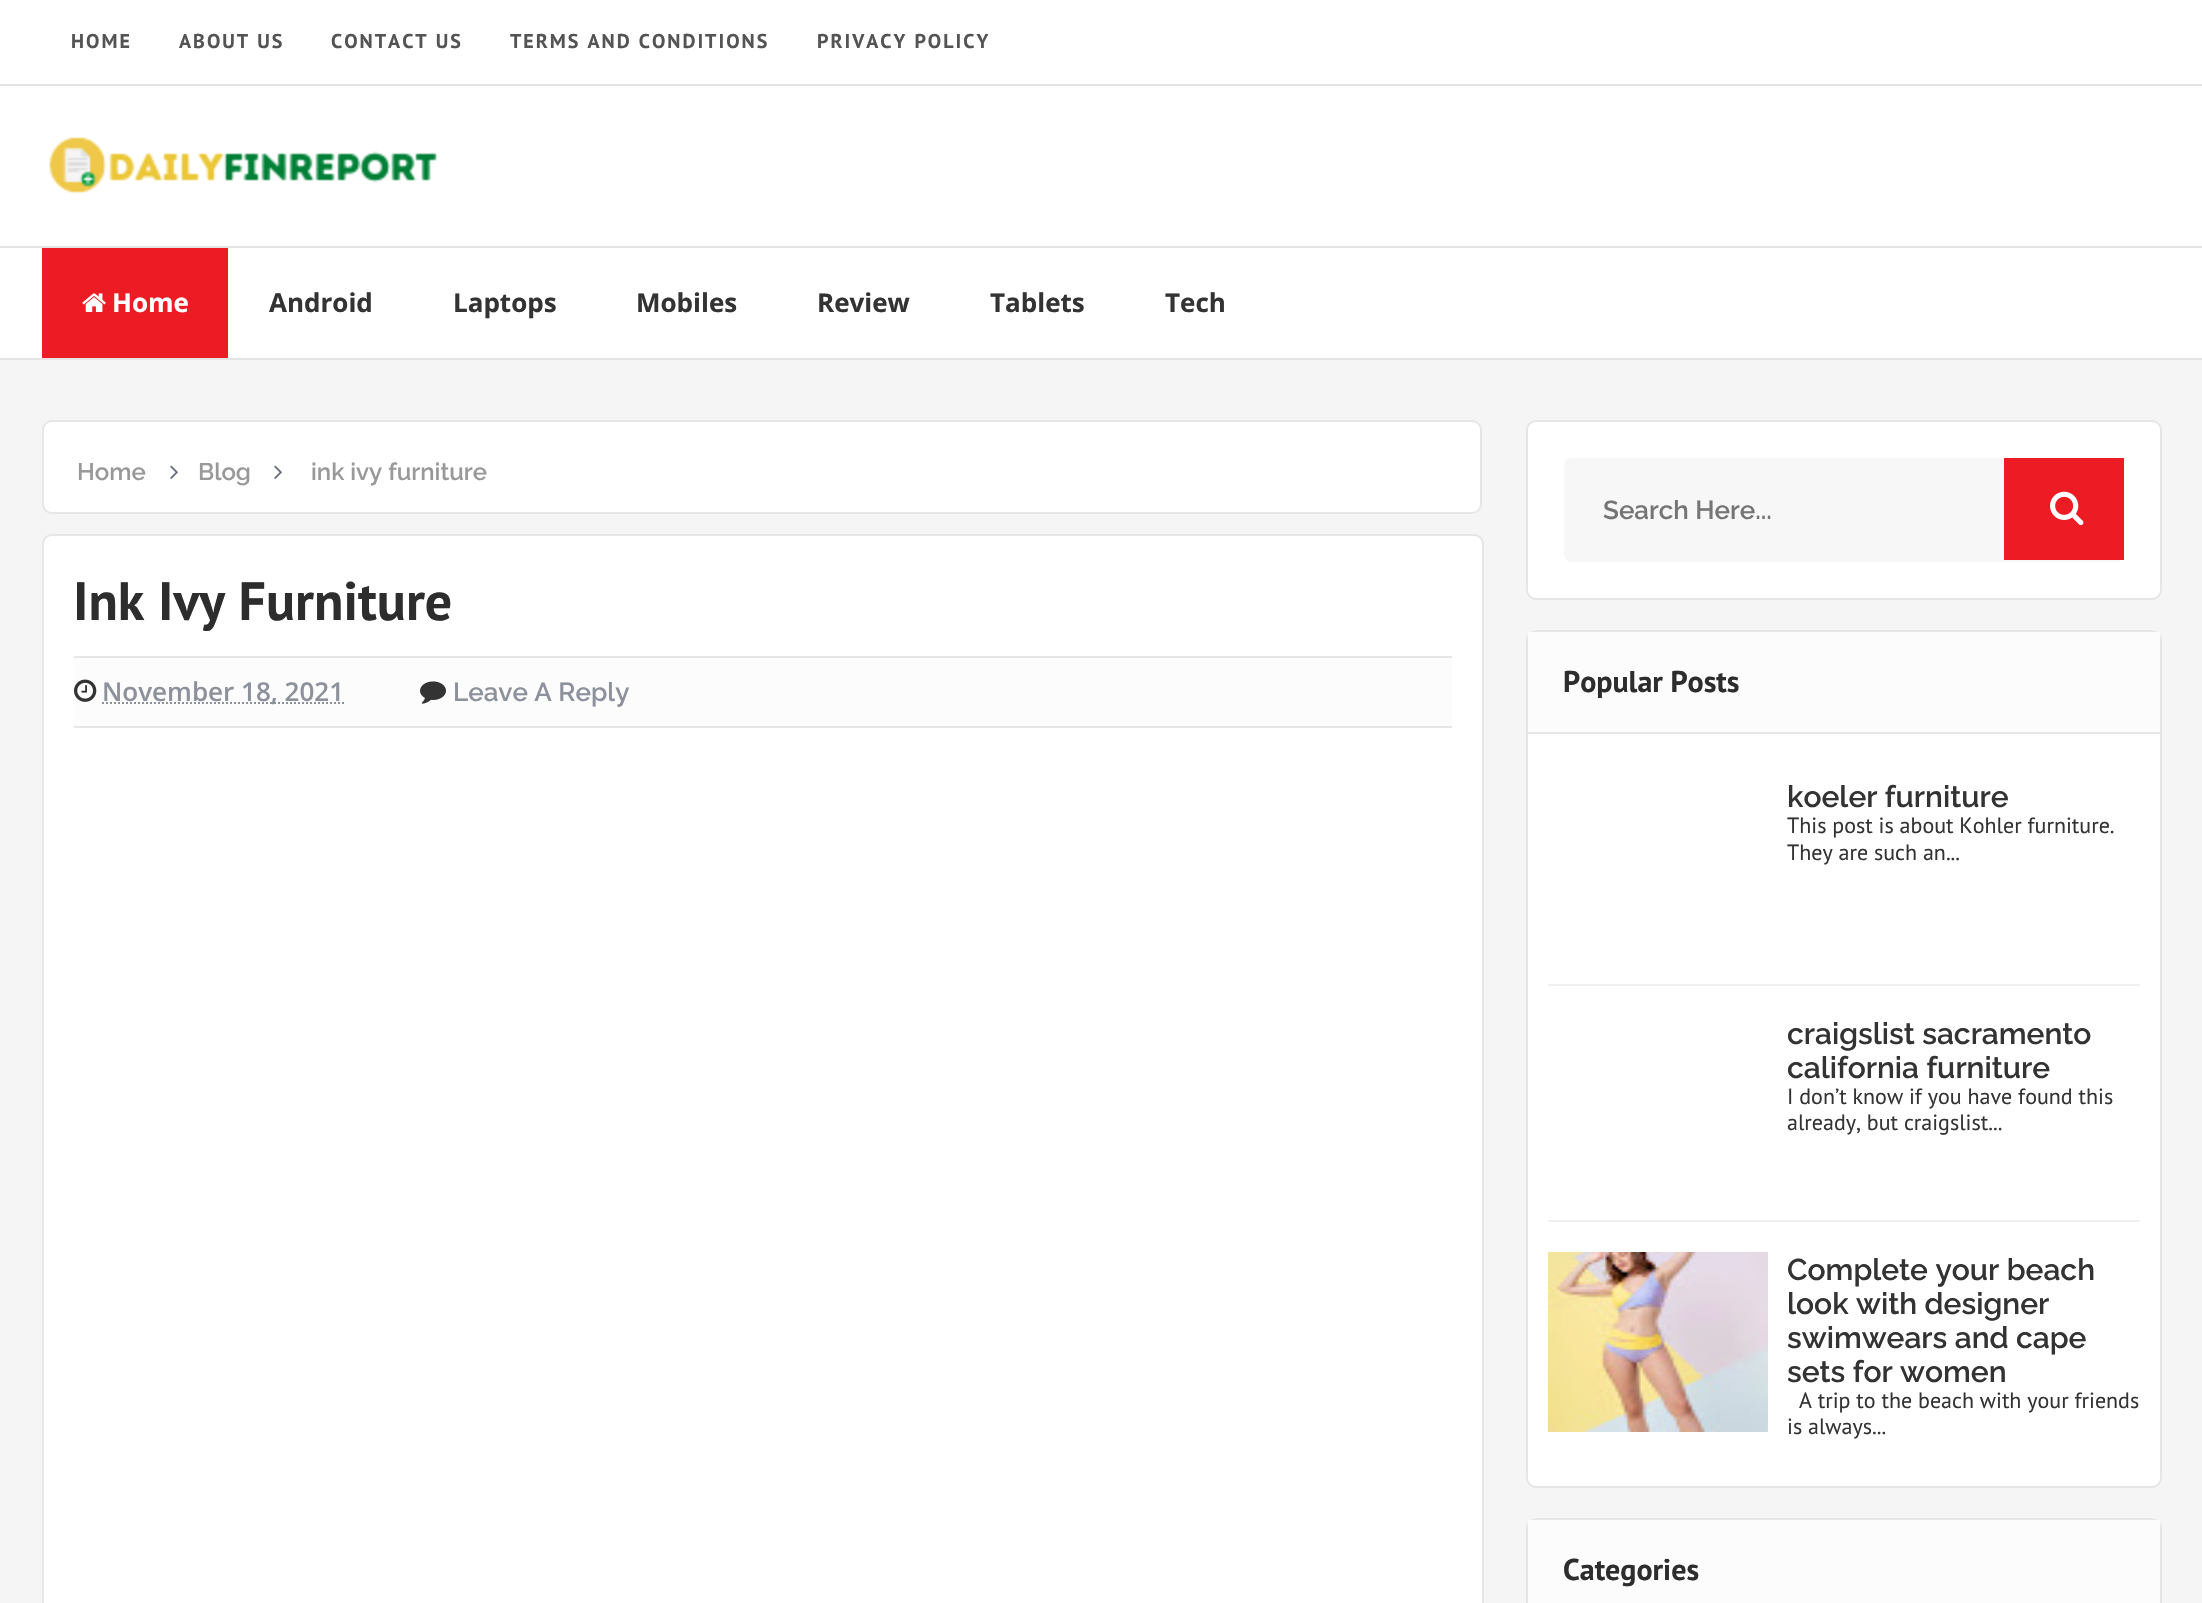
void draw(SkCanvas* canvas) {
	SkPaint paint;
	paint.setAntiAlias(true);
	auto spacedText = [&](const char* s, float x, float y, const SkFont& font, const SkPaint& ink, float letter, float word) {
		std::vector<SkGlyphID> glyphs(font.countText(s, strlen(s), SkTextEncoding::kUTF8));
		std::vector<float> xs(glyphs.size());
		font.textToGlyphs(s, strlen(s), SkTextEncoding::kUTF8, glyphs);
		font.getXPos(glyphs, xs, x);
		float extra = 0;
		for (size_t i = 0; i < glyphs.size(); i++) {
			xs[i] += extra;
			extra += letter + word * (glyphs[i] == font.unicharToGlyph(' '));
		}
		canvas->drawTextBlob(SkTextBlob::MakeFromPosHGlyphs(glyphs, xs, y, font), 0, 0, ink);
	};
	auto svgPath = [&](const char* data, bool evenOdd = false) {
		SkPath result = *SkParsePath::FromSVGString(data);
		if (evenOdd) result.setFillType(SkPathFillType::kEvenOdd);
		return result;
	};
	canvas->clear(0xfff5f5f5);
	paint.setColor(0xffffffff);
	canvas->drawRect(SkRect::MakeXYWH(0, 0, 2202, 84), paint);
	paint.setColor(0xffe4e4e4);
	canvas->drawRect(SkRect::MakeXYWH(0, 84, 2202, 2), paint);
	SkFont f1(fontMgr->matchFamilyStyle("PT Sans", SkFontStyle::Bold()), 20);
	f1.setSubpixel(true);
	paint.setColor(0xff545454);
	spacedText("HOME", 71, 48, f1, paint, 2, 0);
	spacedText("ABOUT US", 179, 48, f1, paint, 2, 0);
	spacedText("CONTACT US", 331, 48, f1, paint, 2, 0);
	spacedText("TERMS AND CONDITIONS", 510, 48, f1, paint, 2, 0);
	spacedText("PRIVACY POLICY", 817, 48, f1, paint, 2, 0);
	paint.setColor(0xffffffff);
	canvas->drawRect(SkRect::MakeXYWH(0, 86, 2202, 160), paint);
	canvas->drawImageRect(SkImages::DeferredFromEncodedData(SkData::MakeFromFileName("img1.png")), SkRect::MakeXYWH(49, 137, 388, 57), SkSamplingOptions());
	canvas->drawRect(SkRect::MakeXYWH(0, 248, 2202, 110), paint);
	paint.setColor(0xffe4e4e4);
	canvas->drawRect(SkRect::MakeXYWH(0, 246, 2202, 2), paint);
	canvas->drawRect(SkRect::MakeXYWH(0, 358, 2202, 2), paint);
	paint.setColor(0xffed1c24);
	canvas->drawRect(SkRect::MakeXYWH(42, 248, 186, 110), paint);
	canvas->drawImageRect(SkImages::DeferredFromEncodedData(SkData::MakeFromFileName("img2.png")), SkRect::MakeXYWH(82, 293, 24, 19), SkSamplingOptions());
	SkFont f2(fontMgr->matchFamilyStyle("Open Sans", SkFontStyle::Bold()), 26);
	f2.setSubpixel(true);
	paint.setColor(0xffffffff);
	canvas->drawString("Home", 112, 312, f2, paint);
	paint.setColor(0xff333333);
	canvas->drawString("Android", 269, 312, f2, paint);
	canvas->drawString("Laptops", 453, 312, f2, paint);
	canvas->drawString("Mobiles", 636, 312, f2, paint);
	canvas->drawString("Review", 817, 312, f2, paint);
	canvas->drawString("Tablets", 990, 312, f2, paint);
	canvas->drawString("Tech", 1165, 312, f2, paint);
	paint.setColor(0xffffffff);
	canvas->drawRoundRect(SkRect::MakeXYWH(43, 421, 1438, 92), 9, 9, paint);
	paint.setStroke(true);
	paint.setStrokeWidth(2);
	paint.setColor(0xffe6e6e6);
	canvas->drawRoundRect(SkRect::MakeXYWH(43, 421, 1438, 92), 9, 9, paint);
	SkFont f3(fontMgr->matchFamilyStyle("Raleway", SkFontStyle(600, SkFontStyle::kNormal_Width, SkFontStyle::kUpright_Slant)), 24);
	f3.setSubpixel(true);
	paint.setStroke(false);
	paint.setColor(0xff999999);
	canvas->drawString("Home", 77, 480, f3, paint);
	canvas->drawImageRect(SkImages::DeferredFromEncodedData(SkData::MakeFromFileName("img3.png")), SkRect::MakeXYWH(170, 465, 8, 14), SkSamplingOptions());
	canvas->drawString("Blog", 198, 480, f3, paint);
	canvas->drawImageRect(SkImages::DeferredFromEncodedData(SkData::MakeFromFileName("img3.png")), SkRect::MakeXYWH(274, 465, 8, 14), SkSamplingOptions());
	canvas->drawString("ink ivy furniture", 311, 480, f3, paint);
	paint.setColor(0xffffffff);
	canvas->drawRoundRect(SkRect::MakeXYWH(43, 535, 1440, 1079), 9, 9, paint);
	paint.setStroke(true);
	paint.setColor(0xffe6e6e6);
	canvas->drawRoundRect(SkRect::MakeXYWH(43, 535, 1440, 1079), 9, 9, paint);
	SkFont f4(fontMgr->matchFamilyStyle("PT Sans", SkFontStyle::Bold()), 54);
	f4.setSubpixel(true);
	paint.setStroke(false);
	paint.setColor(0xff2d2d2d);
	canvas->drawString("Ink Ivy Furniture", 73, 620, f4, paint);
	paint.setColor(0xfffcfcfc);
	canvas->drawRect(SkRect::MakeXYWH(74, 658, 1378, 68), paint);
	paint.setColor(0xffe6e6e6);
	canvas->drawRect(SkRect::MakeXYWH(74, 656, 1378, 2), paint);
	canvas->drawRect(SkRect::MakeXYWH(74, 726, 1378, 2), paint);
	canvas->drawImageRect(SkImages::DeferredFromEncodedData(SkData::MakeFromFileName("img4.png")), SkRect::MakeXYWH(74, 679, 23, 23), SkSamplingOptions());
	paint.setStroke(true);
	paint.setColor(0xff8c919b);
	paint.setPathEffect(SkDashPathEffect::Make({{2, 2}}, 0));
	canvas->drawPath(svgPath("M102 703H344"), paint);
	paint.setPathEffect(nullptr);
	SkFont f5(fontMgr->matchFamilyStyle("Open Sans", SkFontStyle(600, SkFontStyle::kNormal_Width, SkFontStyle::kUpright_Slant)), 26);
	f5.setSubpixel(true);
	paint.setStroke(false);
	canvas->drawString("November 18, 2021", 102, 701, f5, paint);
	canvas->drawImageRect(SkImages::DeferredFromEncodedData(SkData::MakeFromFileName("img5.png")), SkRect::MakeXYWH(420, 681, 26, 23), SkSamplingOptions());
	SkFont f6(fontMgr->matchFamilyStyle("Raleway", SkFontStyle(600, SkFontStyle::kNormal_Width, SkFontStyle::kUpright_Slant)), 26);
	f6.setSubpixel(true);
	canvas->drawString("Leave A Reply", 453, 701, f6, paint);
	paint.setColor(0xffffffff);
	canvas->drawRoundRect(SkRect::MakeXYWH(1527, 421, 634, 178), 9, 9, paint);
	paint.setStroke(true);
	paint.setColor(0xffe6e6e6);
	canvas->drawRoundRect(SkRect::MakeXYWH(1527, 421, 634, 178), 9, 9, paint);
	paint.setStroke(false);
	paint.setColor(0xfff7f7f7);
	canvas->drawRoundRect(SkRect::MakeXYWH(1564, 458, 560, 104), 8, 8, paint);
	paint.setColor(0xff757575);
	canvas->drawString("Search Here...", 1603, 519, f6, paint);
	paint.setColor(0xffed1c24);
	canvas->drawRect(SkRect::MakeXYWH(2004, 458, 120, 102), paint);
	canvas->drawImageRect(SkImages::DeferredFromEncodedData(SkData::MakeFromFileName("img6.png")), SkRect::MakeXYWH(2050, 491, 34, 35), SkSamplingOptions());
	paint.setColor(0xffffffff);
	canvas->drawRoundRect(SkRect::MakeXYWH(1527, 631, 634, 856), 9, 9, paint);
	paint.setStroke(true);
	paint.setColor(0xffe6e6e6);
	canvas->drawRoundRect(SkRect::MakeXYWH(1527, 631, 634, 856), 9, 9, paint);
	paint.setStroke(false);
	paint.setColor(0xfffcfcfc);
	canvas->drawRect(SkRect::MakeXYWH(1528, 632, 632, 100), paint);
	paint.setColor(0xffe6e6e6);
	canvas->drawRect(SkRect::MakeXYWH(1528, 732, 632, 2), paint);
	SkFont f7(fontMgr->matchFamilyStyle("PT Sans", SkFontStyle::Bold()), 30);
	f7.setSubpixel(true);
	paint.setColor(0xff2d2d2d);
	canvas->drawString("Popular Posts", 1563, 692, f7, paint);
	paint.setColor(0xffefefef);
	canvas->drawRect(SkRect::MakeXYWH(1548, 984, 592, 2), paint);
	SkFont f8(fontMgr->matchFamilyStyle("Raleway", SkFontStyle(600, SkFontStyle::kNormal_Width, SkFontStyle::kUpright_Slant)), 30);
	f8.setSubpixel(true);
	paint.setColor(0xff333333);
	canvas->drawString("koeler furniture", 1787, 807, f8, paint);
	SkFont f9(fontMgr->matchFamilyStyle("PT Sans", SkFontStyle::Normal()), 22);
	f9.setSubpixel(true);
	canvas->drawString("This post is about Kohler furniture.", 1787, 833, f9, paint);
	canvas->drawString("They are such an...", 1787, 860, f9, paint);
	paint.setColor(0xffefefef);
	canvas->drawRect(SkRect::MakeXYWH(1548, 1220, 592, 2), paint);
	paint.setColor(0xff333333);
	canvas->drawString("craigslist sacramento", 1787, 1044, f8, paint);
	canvas->drawString("california furniture", 1787, 1078, f8, paint);
	canvas->drawString("I don’t know if you have found this", 1787, 1104, f9, paint);
	canvas->drawString("already, but craigslist...", 1787, 1130, f9, paint);
	canvas->drawImageRect(SkImages::DeferredFromEncodedData(SkData::MakeFromFileName("img7.png")), SkRect::MakeXYWH(1548, 1252, 220, 180), SkSamplingOptions());
	canvas->drawString("Complete your beach", 1787, 1280, f8, paint);
	canvas->drawString("look with designer", 1787, 1314, f8, paint);
	canvas->drawString("swimwears and cape", 1787, 1348, f8, paint);
	canvas->drawString("sets for women", 1787, 1382, f8, paint);
	canvas->drawString("A trip to the beach with your friends", 1799, 1408, f9, paint);
	canvas->drawString("is always...", 1787, 1434, f9, paint);
	paint.setStroke(true);
	paint.setColor(0xffe6e6e6);
	canvas->drawRoundRect(SkRect::MakeXYWH(1527, 1519, 634, 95), 9, 9, paint);
	paint.setStroke(false);
	paint.setColor(0xfffcfcfc);
	canvas->drawRect(SkRect::MakeXYWH(1528, 1520, 632, 83), paint);
	paint.setColor(0xff2d2d2d);
	canvas->drawString("Categories", 1563, 1580, f7, paint);
}
